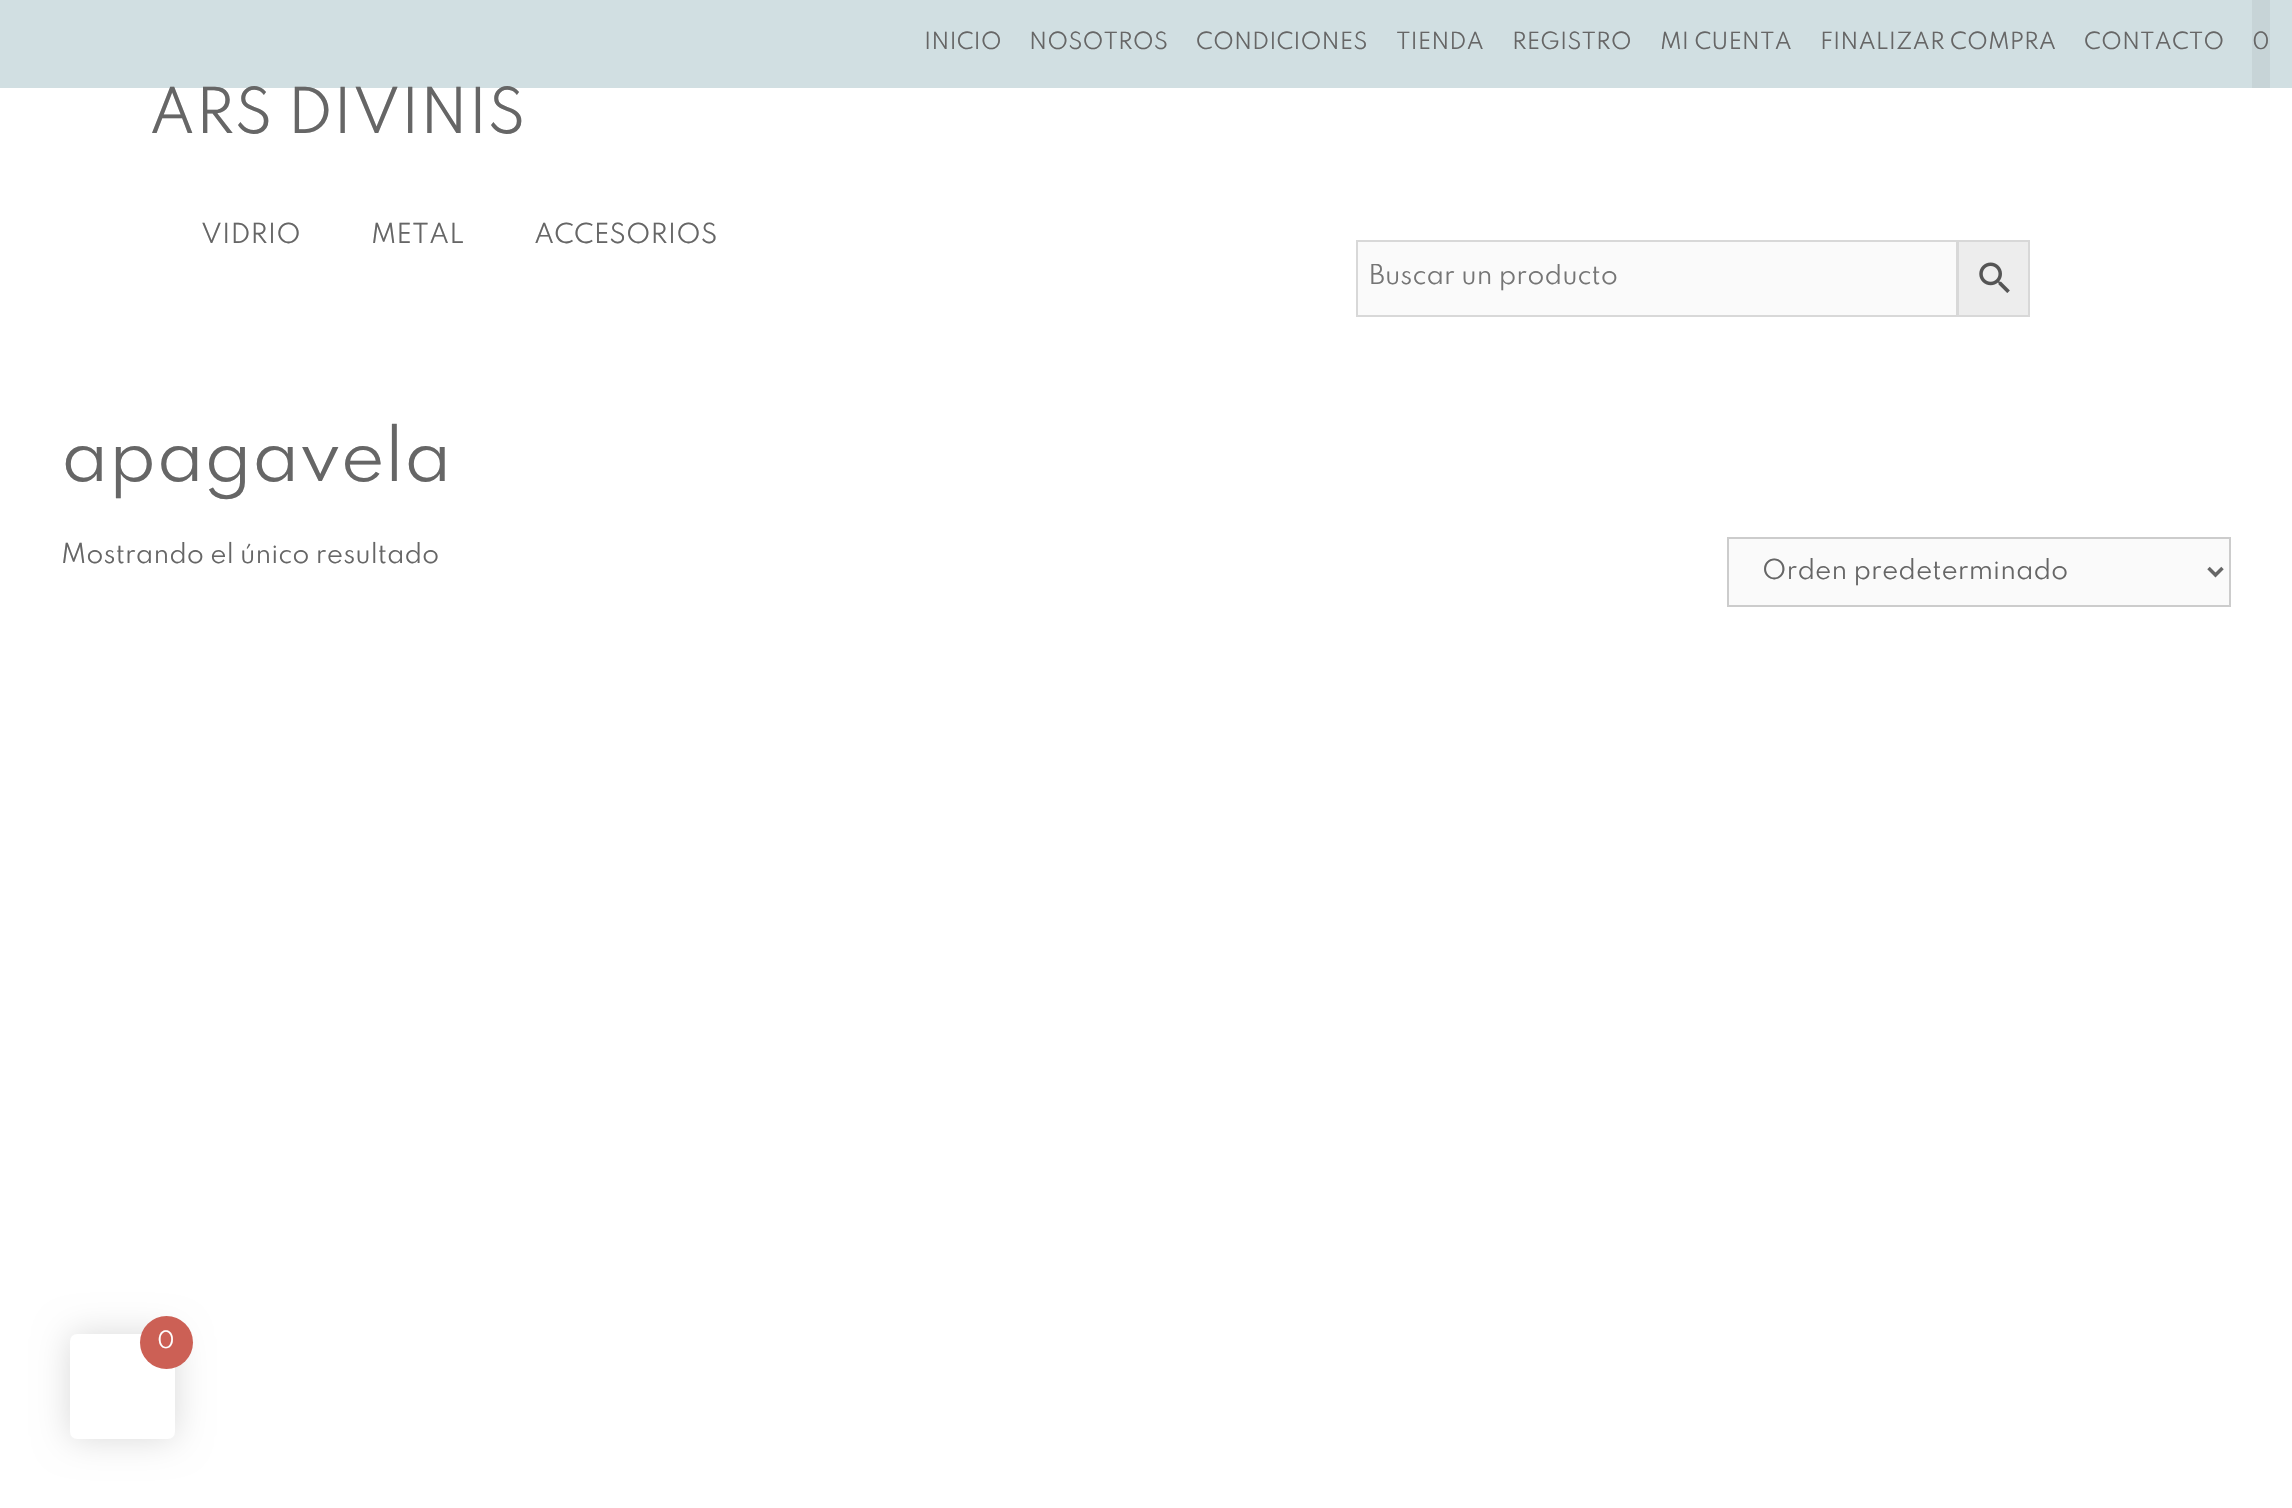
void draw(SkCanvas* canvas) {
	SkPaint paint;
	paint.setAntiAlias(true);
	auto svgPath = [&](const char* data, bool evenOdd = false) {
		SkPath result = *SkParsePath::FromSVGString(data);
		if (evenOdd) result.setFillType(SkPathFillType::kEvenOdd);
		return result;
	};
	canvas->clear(0xffffffff);
	paint.setColor(0xffd1dfe2);
	canvas->drawRect(SkRect::MakeXYWH(0, 0, 2292, 88), paint);
	SkFont f1(fontMgr->matchFamilyStyle("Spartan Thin", SkFontStyle(100, SkFontStyle::kNormal_Width, SkFontStyle::kUpright_Slant)), 21);
	f1.setSubpixel(true);
	paint.setColor(0xff666666);
	canvas->drawString("INICIO", 924, 49, f1, paint);
	canvas->drawString("NOSOTROS", 1029, 49, f1, paint);
	canvas->drawString("CONDICIONES", 1196, 49, f1, paint);
	canvas->drawString("TIENDA", 1396, 49, f1, paint);
	canvas->drawString("REGISTRO", 1512, 49, f1, paint);
	canvas->drawString("MI CUENTA", 1660, 49, f1, paint);
	canvas->drawString("FINALIZAR COMPRA", 1820, 49, f1, paint);
	canvas->drawString("CONTACTO", 2084, 49, f1, paint);
	paint.setColor(0xffc7d4d7);
	canvas->drawRect(SkRect::MakeXYWH(2252, 0, 18, 88), paint);
	paint.setColor(0xff666666);
	canvas->drawString("0", 2252, 49, f1, paint);
	SkFont f2(fontMgr->matchFamilyStyle("Spartan Thin", SkFontStyle(100, SkFontStyle::kNormal_Width, SkFontStyle::kUpright_Slant)), 56);
	f2.setSubpixel(true);
	canvas->drawString("ARS DIVINIS", 149, 133, f2, paint);
	SkFont f3(fontMgr->matchFamilyStyle("Spartan Thin", SkFontStyle(100, SkFontStyle::kNormal_Width, SkFontStyle::kUpright_Slant)), 24.5);
	f3.setSubpixel(true);
	canvas->drawString("VIDRIO", 201, 243, f3, paint);
	canvas->drawString("METAL", 371, 243, f3, paint);
	canvas->drawString("ACCESORIOS", 534, 243, f3, paint);
	paint.setColor(0xffededed);
	canvas->drawRect(SkRect::MakeXYWH(1958, 241, 71, 75), paint);
	paint.setStroke(true);
	paint.setStrokeWidth(2);
	paint.setColor(0xffd8d8d8);
	canvas->drawRect(SkRect::MakeXYWH(1958, 241, 71, 75), paint);
	paint.setStroke(false);
	paint.setColor(0xfffafafa);
	canvas->drawRect(SkRect::MakeXYWH(1357, 241, 600, 75), paint);
	paint.setStroke(true);
	paint.setColor(0xffd8d8d8);
	canvas->drawRect(SkRect::MakeXYWH(1357, 241, 600, 75), paint);
	canvas->save();
	canvas->clipRect(SkRect::MakeXYWH(1369, 264, 577, 30));
	paint.setStroke(false);
	paint.setColor(0xff757575);
	canvas->drawString("Buscar un producto", 1369, 284, f3, paint);
	canvas->restore();
	canvas->drawImageRect(SkImages::DeferredFromEncodedData(SkData::MakeFromFileName("img1.png")), SkRect::MakeXYWH(1979, 262, 31, 31), SkSamplingOptions());
	SkFont f4(fontMgr->matchFamilyStyle("Spartan Thin", SkFontStyle(100, SkFontStyle::kNormal_Width, SkFontStyle::kUpright_Slant)), 66.5);
	f4.setSubpixel(true);
	paint.setColor(0xff666666);
	canvas->drawString("apagavela", 61, 481, f4, paint);
	canvas->drawString("Mostrando el único resultado", 61, 563, f3, paint);
	paint.setColor(0xfffafafa);
	canvas->drawRect(SkRect::MakeXYWH(1728, 538, 502, 68), paint);
	paint.setStroke(true);
	paint.setColor(0xffcccccc);
	canvas->drawRect(SkRect::MakeXYWH(1728, 538, 502, 68), paint);
	paint.setStrokeWidth(3.5);
	paint.setColor(0xff666666);
	canvas->drawPath(svgPath("M2208.5 568L2215.5 575L2222.5 568"), paint);
	paint.setStroke(false);
	canvas->drawString("Orden predeterminado", 1762, 579, f3, paint);
	paint.setColor(0x26000000);
	paint.setMaskFilter(SkMaskFilter::MakeBlur(kNormal_SkBlurStyle, 17.5));
	canvas->drawRoundRect(SkRect::MakeXYWH(70, 1334, 105, 105), 7, 7, paint);
	paint.setMaskFilter(nullptr);
	paint.setColor(0xffffffff);
	canvas->drawRoundRect(SkRect::MakeXYWH(70, 1334, 105, 105), 7, 7, paint);
	paint.setColor(0xffcc6055);
	canvas->drawCircle(166.5, 1342.5, 26.5, paint);
	paint.setColor(0xffffffff);
	canvas->drawString("0", 157, 1348, f1, paint);
}
